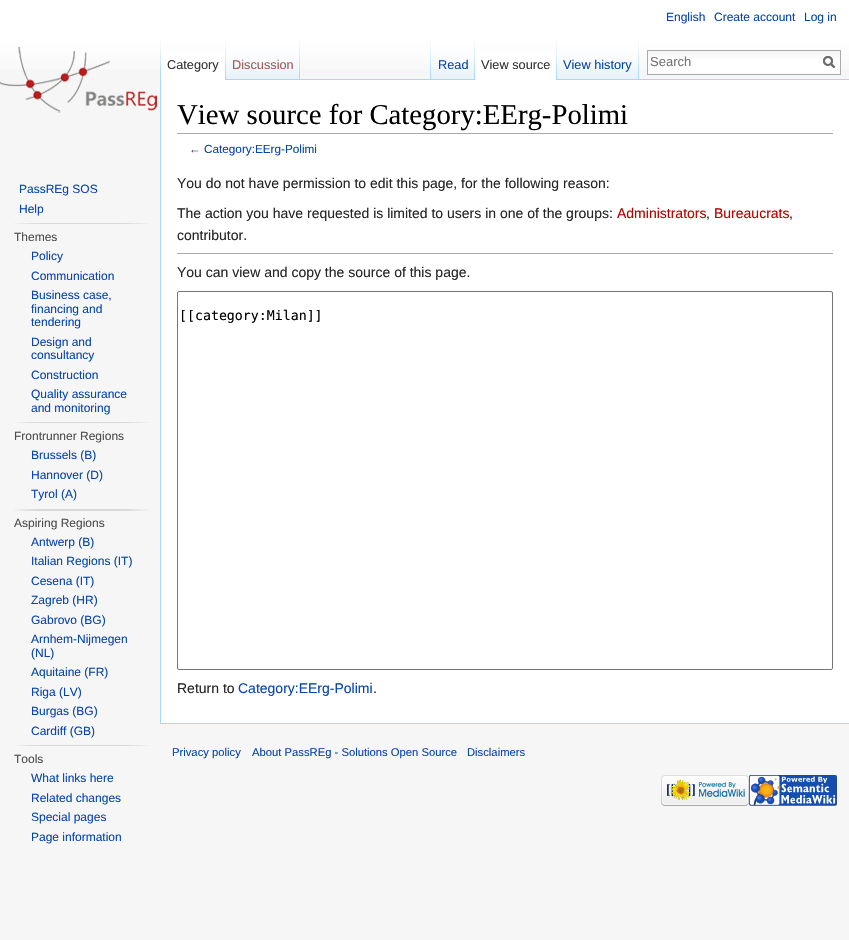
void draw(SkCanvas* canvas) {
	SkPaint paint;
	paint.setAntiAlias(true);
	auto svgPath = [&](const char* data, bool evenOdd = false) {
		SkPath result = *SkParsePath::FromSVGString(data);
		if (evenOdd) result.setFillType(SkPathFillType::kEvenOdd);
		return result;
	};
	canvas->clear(0xfff6f6f6);
	{
		const SkColor colors[] = {0xffffffff, 0xfff6f6f6};
		const float stops[] = {0.5, 1};
		const SkPoint ends[] = {{425, 0}, {425, 80}};
		paint.setShader(SkGradientShader::MakeLinear(ends, colors, stops, 2, SkTileMode::kClamp));
		paint.setAlpha(255);
	}
	canvas->drawRect(SkRect::MakeXYWH(0, 0, 849, 69), paint);
	SkFont f1(fontMgr->matchFamilyStyle("Liberation Sans", SkFontStyle::Normal()), 12);
	f1.setSubpixel(true);
	paint.setShader(nullptr);
	paint.setColor(0xff0645ad);
	canvas->drawString("English", 666, 21, f1, paint);
	canvas->drawString("Create account", 714, 21, f1, paint);
	canvas->drawString("Log in", 804, 21, f1, paint);
	canvas->drawImageRect(SkImages::DeferredFromEncodedData(SkData::MakeFromFileName("img1.png")), SkRect::MakeXYWH(160, 40, 1, 39), SkSamplingOptions());
	paint.setColor(0xffffffff);
	canvas->drawRect(SkRect::MakeXYWH(161, 51, 64, 29), paint);
	canvas->drawImageRect(SkImages::DeferredFromEncodedData(SkData::MakeFromFileName("img2.png")), SkRect::MakeXYWH(225, 40, 1, 40), SkSamplingOptions());
	SkFont f2(fontMgr->matchFamilyStyle("Liberation Sans", SkFontStyle::Normal()), 12.75);
	f2.setSubpixel(true);
	paint.setColor(0xff333333);
	canvas->drawString("Category", 167, 69, f2, paint);
	canvas->drawImageRect(SkImages::DeferredFromEncodedData(SkData::MakeFromFileName("img3.png")), SkRect::MakeXYWH(226, 40, 74, 40), SkSamplingOptions());
	canvas->drawImageRect(SkImages::DeferredFromEncodedData(SkData::MakeFromFileName("img4.png")), SkRect::MakeXYWH(299, 40, 1, 39), SkSamplingOptions());
	paint.setColor(0xffa55858);
	canvas->drawString("Discussion", 232, 69, f2, paint);
	canvas->drawImageRect(SkImages::DeferredFromEncodedData(SkData::MakeFromFileName("img1.png")), SkRect::MakeXYWH(430, 40, 1, 39), SkSamplingOptions());
	paint.setColor(0xffa7d7f9);
	canvas->drawRect(SkRect::MakeXYWH(300, 79, 549, 1), paint);
	canvas->drawImageRect(SkImages::DeferredFromEncodedData(SkData::MakeFromFileName("img5.png")), SkRect::MakeXYWH(431, 40, 44, 40), SkSamplingOptions());
	canvas->drawImageRect(SkImages::DeferredFromEncodedData(SkData::MakeFromFileName("img4.png")), SkRect::MakeXYWH(474, 40, 1, 39), SkSamplingOptions());
	paint.setColor(0xff0645ad);
	canvas->drawString("Read", 438, 69, f2, paint);
	paint.setColor(0xffffffff);
	canvas->drawRect(SkRect::MakeXYWH(475, 51, 81, 29), paint);
	canvas->drawImageRect(SkImages::DeferredFromEncodedData(SkData::MakeFromFileName("img2.png")), SkRect::MakeXYWH(556, 40, 1, 40), SkSamplingOptions());
	paint.setColor(0xff333333);
	canvas->drawString("View source", 481, 69, f2, paint);
	canvas->drawImageRect(SkImages::DeferredFromEncodedData(SkData::MakeFromFileName("img6.png")), SkRect::MakeXYWH(557, 40, 82, 40), SkSamplingOptions());
	canvas->drawImageRect(SkImages::DeferredFromEncodedData(SkData::MakeFromFileName("img4.png")), SkRect::MakeXYWH(638, 40, 1, 39), SkSamplingOptions());
	paint.setColor(0xff0645ad);
	canvas->drawString("View history", 563, 69, f2, paint);
	paint.setColor(0xffffffff);
	canvas->drawRect(SkRect::MakeXYWH(648, 59, 192, 15), paint);
	canvas->drawImageRect(SkImages::DeferredFromEncodedData(SkData::MakeFromFileName("img7.png")), SkRect::MakeXYWH(648, 51, 192, 8), SkSamplingOptions());
	paint.setStroke(true);
	paint.setStrokeWidth(1);
	paint.setColor(0xffaaaaaa);
	canvas->drawRect(SkRect::MakeXYWH(647.5, 50.5, 193, 24), paint);
	SkFont f3(fontMgr->matchFamilyStyle("Liberation Sans", SkFontStyle::Normal()), 13);
	f3.setSubpixel(true);
	paint.setStroke(false);
	paint.setColor(0xff757575);
	canvas->drawString("Search", 650, 66, f3, paint);
	paint.setStroke(true);
	paint.setStrokeWidth(2);
	paint.setColor(0xff6c6c6c);
	canvas->drawPath(svgPath("M834.5 67.5L830.5 63.5"), paint);
	canvas->drawCircle(828, 61, 4, paint);
	canvas->drawPath(svgPath("M834.5 67.5L830.5 63.5"), paint);
	canvas->drawCircle(828, 61, 4, paint);
	canvas->drawImageRect(SkImages::DeferredFromEncodedData(SkData::MakeFromFileName("img8.png")), SkRect::MakeXYWH(0, 47, 157, 66), SkSamplingOptions());
	paint.setStroke(false);
	paint.setColor(0xff0645ad);
	canvas->drawString("PassREg SOS", 19, 193, f1, paint);
	canvas->drawString("Help", 19, 213, f1, paint);
	canvas->drawImageRect(SkImages::DeferredFromEncodedData(SkData::MakeFromFileName("img9.png")), SkRect::MakeXYWH(14, 223, 135, 1), SkSamplingOptions());
	paint.setColor(0xff4d4d4d);
	canvas->drawString("Themes", 14, 241, f1, paint);
	paint.setColor(0xff0645ad);
	canvas->drawString("Policy", 31, 260, f1, paint);
	canvas->drawString("Communication", 31, 280, f1, paint);
	canvas->drawString("Business case,", 31, 299, f1, paint);
	canvas->drawString("financing and", 31, 313, f1, paint);
	canvas->drawString("tendering", 31, 326, f1, paint);
	canvas->drawString("Design and", 31, 346, f1, paint);
	canvas->drawString("consultancy", 31, 359, f1, paint);
	canvas->drawString("Construction", 31, 379, f1, paint);
	canvas->drawString("Quality assurance", 31, 398, f1, paint);
	canvas->drawString("and monitoring", 31, 412, f1, paint);
	canvas->drawImageRect(SkImages::DeferredFromEncodedData(SkData::MakeFromFileName("img9.png")), SkRect::MakeXYWH(14, 422, 135, 1), SkSamplingOptions());
	paint.setColor(0xff4d4d4d);
	canvas->drawString("Frontrunner Regions", 14, 440, f1, paint);
	paint.setColor(0xff0645ad);
	canvas->drawString("Brussels (B)", 31, 459, f1, paint);
	canvas->drawString("Hannover (D)", 31, 479, f1, paint);
	canvas->drawString("Tyrol (A)", 31, 498, f1, paint);
	canvas->drawImageRect(SkImages::DeferredFromEncodedData(SkData::MakeFromFileName("img10.png")), SkRect::MakeXYWH(14, 509, 135, 2), SkSamplingOptions());
	paint.setColor(0xff4d4d4d);
	canvas->drawString("Aspiring Regions", 14, 527, f1, paint);
	paint.setColor(0xff0645ad);
	canvas->drawString("Antwerp (B)", 31, 546, f1, paint);
	canvas->drawString("Italian Regions (IT)", 31, 565, f1, paint);
	canvas->drawString("Cesena (IT)", 31, 585, f1, paint);
	canvas->drawString("Zagreb (HR)", 31, 604, f1, paint);
	canvas->drawString("Gabrovo (BG)", 31, 624, f1, paint);
	canvas->drawString("Arnhem-Nijmegen", 31, 643, f1, paint);
	canvas->drawString("(NL)", 31, 657, f1, paint);
	canvas->drawString("Aquitaine (FR)", 31, 676, f1, paint);
	canvas->drawString("Riga (LV)", 31, 696, f1, paint);
	canvas->drawString("Burgas (BG)", 31, 715, f1, paint);
	canvas->drawString("Cardiff (GB)", 31, 735, f1, paint);
	canvas->drawImageRect(SkImages::DeferredFromEncodedData(SkData::MakeFromFileName("img9.png")), SkRect::MakeXYWH(14, 745, 135, 1), SkSamplingOptions());
	paint.setColor(0xff4d4d4d);
	canvas->drawString("Tools", 14, 763, f1, paint);
	paint.setColor(0xff0645ad);
	canvas->drawString("What links here", 31, 782, f1, paint);
	canvas->drawString("Related changes", 31, 802, f1, paint);
	canvas->drawString("Special pages", 31, 821, f1, paint);
	canvas->drawString("Page information", 31, 841, f1, paint);
	paint.setColor(0xffffffff);
	canvas->drawRect(SkRect::MakeXYWH(161, 80, 688, 643), paint);
	paint.setColor(0xffa7d7f9);
	canvas->drawRect(SkRect::MakeXYWH(160, 723, 689, 1), paint);
	canvas->drawRect(SkRect::MakeXYWH(160, 79, 1, 645), paint);
	paint.setColor(0xffaaaaaa);
	canvas->drawRect(SkRect::MakeXYWH(177, 133, 656, 1), paint);
	SkFont f4(fontMgr->matchFamilyStyle("Liberation Serif", SkFontStyle::Normal()), 28.75);
	f4.setSubpixel(true);
	paint.setColor(0xff000000);
	canvas->drawString("View source for Category:EErg-Polimi", 177, 124, f4, paint);
	SkFont f5(fontMgr->matchFamilyStyle("Liberation Sans", SkFontStyle::Normal()), 11.75);
	f5.setSubpixel(true);
	paint.setColor(0xff545454);
	canvas->drawString("←", 189, 153, f5, paint);
	paint.setColor(0xff0645ad);
	canvas->drawString("Category:EErg-Polimi", 204, 153, f5, paint);
	SkFont f6(fontMgr->matchFamilyStyle("Liberation Sans", SkFontStyle::Normal()), 14);
	f6.setSubpixel(true);
	paint.setColor(0xff252525);
	canvas->drawString("You do not have permission to edit this page, for the following reason:", 177, 188, f6, paint);
	canvas->drawString("The action you have requested is limited to users in one of the groups:", 177, 218, f6, paint);
	paint.setColor(0xffba0000);
	canvas->drawString("Administrators", 617, 218, f6, paint);
	paint.setColor(0xff252525);
	canvas->drawString(",", 706, 218, f6, paint);
	paint.setColor(0xffba0000);
	canvas->drawString("Bureaucrats", 714, 218, f6, paint);
	paint.setColor(0xff252525);
	canvas->drawString(",", 789, 218, f6, paint);
	canvas->drawString("contributor.", 177, 240, f6, paint);
	paint.setColor(0xffaaaaaa);
	canvas->drawRect(SkRect::MakeXYWH(177, 253, 656, 1), paint);
	paint.setColor(0xff252525);
	canvas->drawString("You can view and copy the source of this page.", 177, 277, f6, paint);
	paint.setStroke(true);
	paint.setStrokeWidth(1);
	paint.setColor(0xff767676);
	canvas->drawRoundRect(SkRect::MakeXYWH(177.5, 291.5, 655, 378), 1.5, 1.5, paint);
	SkFont f7(fontMgr->matchFamilyStyle("DejaVu Sans Mono", SkFontStyle::Normal()), 13.25);
	f7.setSubpixel(true);
	paint.setStroke(false);
	paint.setColor(0xff000000);
	canvas->drawString("[[category:Milan]]", 179, 320, f7, paint);
	paint.setColor(0xff252525);
	canvas->drawString("Return to", 177, 693, f6, paint);
	paint.setColor(0xff0645ad);
	canvas->drawString("Category:EErg-Polimi", 238, 693, f6, paint);
	paint.setColor(0xff252525);
	canvas->drawString(".", 373, 693, f6, paint);
	SkFont f8(fontMgr->matchFamilyStyle("Liberation Sans", SkFontStyle::Normal()), 11.25);
	f8.setSubpixel(true);
	paint.setColor(0xff0645ad);
	canvas->drawString("Privacy policy", 172, 756, f8, paint);
	canvas->drawString("About PassREg - Solutions Open Source", 252, 756, f8, paint);
	canvas->drawString("Disclaimers", 467, 756, f8, paint);
	canvas->drawImageRect(SkImages::DeferredFromEncodedData(SkData::MakeFromFileName("img11.png")), SkRect::MakeXYWH(661, 775, 88, 31), SkSamplingOptions());
	canvas->drawImageRect(SkImages::DeferredFromEncodedData(SkData::MakeFromFileName("img12.png")), SkRect::MakeXYWH(749, 775, 88, 31), SkSamplingOptions());
}
